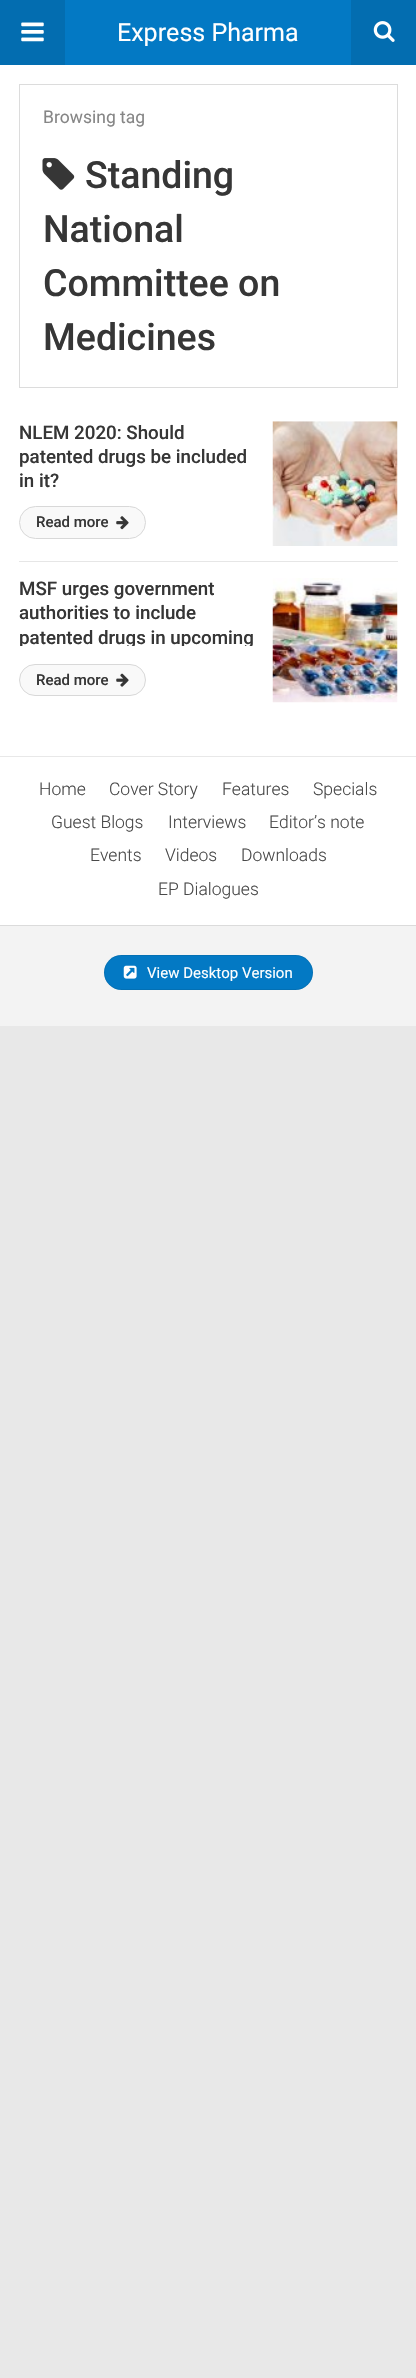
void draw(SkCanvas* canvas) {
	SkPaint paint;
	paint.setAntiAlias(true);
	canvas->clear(0xffe8e8e8);
	paint.setColor(0xffffffff);
	canvas->drawRect(SkRect::MakeXYWH(0, 65, 416, 691), paint);
	paint.setColor(0xff0379c4);
	canvas->drawRect(SkRect::MakeXYWH(65, 0, 286, 65), paint);
	paint.setColor(0xff036db0);
	canvas->drawRect(SkRect::MakeXYWH(0, 0, 65, 65), paint);
	canvas->drawImageRect(SkImages::DeferredFromEncodedData(SkData::MakeFromFileName("img1.png")), SkRect::MakeXYWH(21, 22, 23, 20), SkSamplingOptions());
	SkFont f1(fontMgr->matchFamilyStyle("Roboto", SkFontStyle::Normal()), 25);
	f1.setSubpixel(true);
	paint.setColor(0xffffffff);
	canvas->drawString("Express Pharma", 117, 41, f1, paint);
	paint.setColor(0xff036db0);
	canvas->drawRect(SkRect::MakeXYWH(351, 0, 65, 65), paint);
	canvas->drawImageRect(SkImages::DeferredFromEncodedData(SkData::MakeFromFileName("img2.png")), SkRect::MakeXYWH(373, 21, 22, 21), SkSamplingOptions());
	paint.setStroke(true);
	paint.setStrokeWidth(1);
	paint.setColor(0xffdcdcdc);
	canvas->drawRect(SkRect::MakeXYWH(19.5, 84.5, 378, 303), paint);
	SkFont f2(fontMgr->matchFamilyStyle("Roboto", SkFontStyle::Normal()), 17.5);
	f2.setSubpixel(true);
	paint.setStroke(false);
	paint.setColor(0xff868686);
	canvas->drawString("Browsing tag", 43, 123, f2, paint);
	canvas->drawImageRect(SkImages::DeferredFromEncodedData(SkData::MakeFromFileName("img3.png")), SkRect::MakeXYWH(42, 158, 33, 32), SkSamplingOptions());
	SkFont f3(fontMgr->matchFamilyStyle("Roboto", SkFontStyle(500, SkFontStyle::kNormal_Width, SkFontStyle::kUpright_Slant)), 37.5);
	f3.setSubpixel(true);
	paint.setColor(0xff363636);
	canvas->drawString("Standing", 85, 188, f3, paint);
	canvas->drawString("National", 43, 242, f3, paint);
	canvas->drawString("Committee on", 43, 296, f3, paint);
	canvas->drawString("Medicines", 43, 350, f3, paint);
	paint.setColor(0xffe6e6e6);
	canvas->drawRect(SkRect::MakeXYWH(19, 561, 379, 1), paint);
	SkFont f4(fontMgr->matchFamilyStyle("Roboto", SkFontStyle(500, SkFontStyle::kNormal_Width, SkFontStyle::kUpright_Slant)), 18.75);
	f4.setSubpixel(true);
	paint.setColor(0xff363636);
	canvas->drawString("NLEM 2020: Should", 19, 439, f4, paint);
	canvas->drawString("patented drugs be included", 19, 463, f4, paint);
	canvas->drawString("in it?", 19, 487, f4, paint);
	canvas->drawImageRect(SkImages::DeferredFromEncodedData(SkData::MakeFromFileName("img4.png")), SkRect::MakeXYWH(272, 421, 126, 125), SkSamplingOptions());
	paint.setColor(0xfff9f9f9);
	canvas->drawRoundRect(SkRect::MakeXYWH(19.5, 506.5, 126, 32), 16, 16, paint);
	paint.setStroke(true);
	paint.setColor(0xffd8d8d8);
	canvas->drawRoundRect(SkRect::MakeXYWH(19.5, 506.5, 126, 32), 16, 16, paint);
	SkFont f5(fontMgr->matchFamilyStyle("Roboto", SkFontStyle(500, SkFontStyle::kNormal_Width, SkFontStyle::kUpright_Slant)), 15);
	f5.setSubpixel(true);
	paint.setStroke(false);
	paint.setColor(0xff363636);
	canvas->drawString("Read more", 36, 527, f5, paint);
	canvas->drawImageRect(SkImages::DeferredFromEncodedData(SkData::MakeFromFileName("img5.png")), SkRect::MakeXYWH(116, 516, 13, 14), SkSamplingOptions());
	canvas->drawString("MSF urges government", 19, 595, f4, paint);
	canvas->drawString("authorities to include", 19, 619, f4, paint);
	canvas->save();
	canvas->clipRect(SkRect::MakeXYWH(19, 578, 235, 68));
	canvas->drawString("patented drugs in upcoming", 19, 644, f4, paint);
	canvas->restore();
	canvas->drawImageRect(SkImages::DeferredFromEncodedData(SkData::MakeFromFileName("img6.png")), SkRect::MakeXYWH(272, 578, 126, 125), SkSamplingOptions());
	paint.setColor(0xfff9f9f9);
	canvas->drawRoundRect(SkRect::MakeXYWH(19.5, 664.5, 126, 31), 15.5, 15.5, paint);
	paint.setStroke(true);
	paint.setColor(0xffd8d8d8);
	canvas->drawRoundRect(SkRect::MakeXYWH(19.5, 664.5, 126, 31), 15.5, 15.5, paint);
	paint.setStroke(false);
	paint.setColor(0xff363636);
	canvas->drawString("Read more", 36, 685, f5, paint);
	canvas->drawImageRect(SkImages::DeferredFromEncodedData(SkData::MakeFromFileName("img7.png")), SkRect::MakeXYWH(116, 673, 13, 14), SkSamplingOptions());
	paint.setColor(0xfff3f3f3);
	canvas->drawRect(SkRect::MakeXYWH(0, 926, 416, 100), paint);
	paint.setColor(0xffffffff);
	canvas->drawRect(SkRect::MakeXYWH(0, 757, 416, 168), paint);
	SkFont f6(fontMgr->matchFamilyStyle("Roboto", SkFontStyle(300, SkFontStyle::kNormal_Width, SkFontStyle::kUpright_Slant)), 17.5);
	f6.setSubpixel(true);
	paint.setColor(0xff494949);
	canvas->drawString("Home", 39, 795, f6, paint);
	canvas->drawString("Cover Story", 109, 795, f6, paint);
	canvas->drawString("Features", 222, 795, f6, paint);
	canvas->drawString("Specials", 313, 795, f6, paint);
	canvas->drawString("Guest Blogs", 51, 828, f6, paint);
	canvas->drawString("Interviews", 168, 828, f6, paint);
	canvas->drawString("Editor’s note", 269, 828, f6, paint);
	canvas->drawString("Events", 90, 861, f6, paint);
	canvas->drawString("Videos", 165, 861, f6, paint);
	canvas->drawString("Downloads", 241, 861, f6, paint);
	canvas->drawString("EP Dialogues", 158, 895, f6, paint);
	paint.setColor(0xffdbdbdb);
	canvas->drawRect(SkRect::MakeXYWH(0, 925, 416, 1), paint);
	paint.setColor(0xff0379c4);
	canvas->drawRoundRect(SkRect::MakeXYWH(104, 955, 209, 35), 17.5, 17.5, paint);
	paint.setStroke(true);
	paint.setColor(0x14000000);
	canvas->drawRoundRect(SkRect::MakeXYWH(104.5, 955.5, 208, 34), 17, 17, paint);
	canvas->drawImageRect(SkImages::DeferredFromEncodedData(SkData::MakeFromFileName("img8.png")), SkRect::MakeXYWH(123, 965, 14, 14), SkSamplingOptions());
	SkFont f7(fontMgr->matchFamilyStyle("Roboto", SkFontStyle::Normal()), 15);
	f7.setSubpixel(true);
	paint.setStroke(false);
	paint.setColor(0xffffffff);
	canvas->drawString("View Desktop Version", 147, 978, f7, paint);
}
